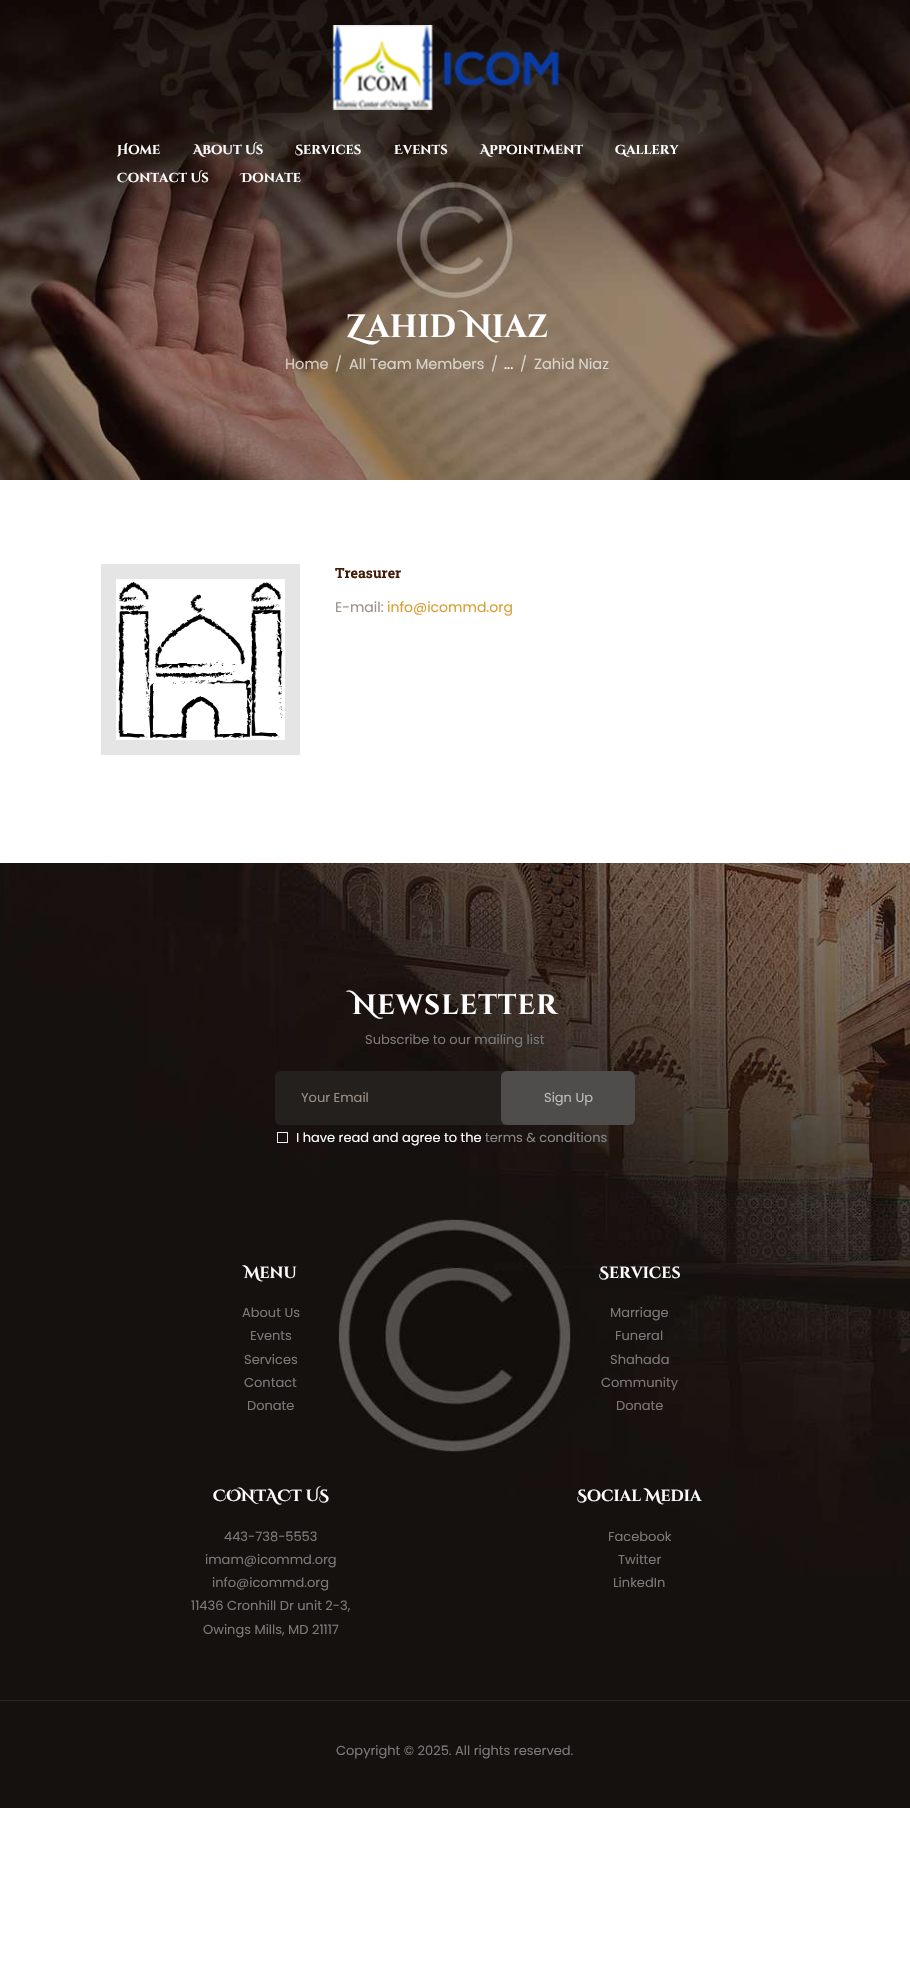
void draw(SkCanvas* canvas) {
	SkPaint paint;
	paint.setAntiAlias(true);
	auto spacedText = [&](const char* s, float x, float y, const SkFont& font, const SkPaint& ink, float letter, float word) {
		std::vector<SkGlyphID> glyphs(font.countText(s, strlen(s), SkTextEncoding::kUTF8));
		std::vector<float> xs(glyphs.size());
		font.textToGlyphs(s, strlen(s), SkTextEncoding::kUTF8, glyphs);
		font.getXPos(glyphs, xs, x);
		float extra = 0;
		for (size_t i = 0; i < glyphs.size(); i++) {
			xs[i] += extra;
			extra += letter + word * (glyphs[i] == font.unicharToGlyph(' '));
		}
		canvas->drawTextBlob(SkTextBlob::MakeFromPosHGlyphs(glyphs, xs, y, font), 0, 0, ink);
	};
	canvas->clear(0xffffffff);
	canvas->drawImageRect(SkImages::DeferredFromEncodedData(SkData::MakeFromFileName("img1.png")), SkRect::MakeXYWH(0, 0, 910, 480), SkSamplingOptions());
	canvas->drawImageRect(SkImages::DeferredFromEncodedData(SkData::MakeFromFileName("img2.png")), SkRect::MakeXYWH(332, 25, 228, 85), SkSamplingOptions());
	SkFont f1(fontMgr->matchFamilyStyle("Cinzel Decorative", SkFontStyle::Bold()), 13);
	f1.setSubpixel(true);
	paint.setColor(0xffffffff);
	canvas->drawString("Home", 117, 154, f1, paint);
	canvas->drawString("About Us", 193, 154, f1, paint);
	canvas->drawString("Services", 295, 154, f1, paint);
	canvas->drawString("Events", 394, 154, f1, paint);
	canvas->drawString("Appointment", 480, 154, f1, paint);
	canvas->drawString("Gallery", 615, 154, f1, paint);
	canvas->drawString("Contact Us", 117, 182, f1, paint);
	canvas->drawString("Donate", 241, 182, f1, paint);
	SkFont f2(fontMgr->matchFamilyStyle("Cinzel Decorative", SkFontStyle::Bold()), 32);
	f2.setSubpixel(true);
	canvas->drawString("Zahid Niaz", 346, 337, f2, paint);
	SkFont f3(fontMgr->matchFamilyStyle("Poppins", SkFontStyle::Normal()), 14.6);
	f3.setSubpixel(true);
	paint.setColor(0xffd5cdc6);
	canvas->drawString("Home", 285, 369, f3, paint);
	canvas->drawString("/", 335, 369, f3, paint);
	paint.setColor(0xffdad4ce);
	canvas->drawString("All Team Members", 349, 369, f3, paint);
	canvas->drawString("/", 491, 369, f3, paint);
	paint.setColor(0xffffffff);
	canvas->drawString("...", 504, 369, f3, paint);
	paint.setColor(0xffdad4ce);
	canvas->drawString("/", 520, 369, f3, paint);
	canvas->drawString("Zahid Niaz", 534, 369, f3, paint);
	paint.setStroke(true);
	paint.setStrokeWidth(15);
	paint.setColor(0xffe5e5e5);
	canvas->drawRect(SkRect::MakeXYWH(108.5, 571.5, 184, 176), paint);
	canvas->drawImageRect(SkImages::DeferredFromEncodedData(SkData::MakeFromFileName("img3.png")), SkRect::MakeXYWH(118, 581, 165, 157), SkSamplingOptions());
	SkFont f4(fontMgr->matchFamilyStyle("Roboto Slab", SkFontStyle::Bold()), 14);
	f4.setSubpixel(true);
	paint.setStroke(false);
	paint.setColor(0xff441a05);
	canvas->drawString("Treasurer", 335, 578, f4, paint);
	SkFont f5(fontMgr->matchFamilyStyle("Poppins", SkFontStyle::Normal()), 14);
	f5.setSubpixel(true);
	paint.setColor(0xff9d9087);
	canvas->drawString("E-mail:", 335, 612, f5, paint);
	paint.setColor(0xffdb9e30);
	canvas->drawString("info@icommd.org", 387, 612, f5, paint);
	paint.setColor(0xff15110e);
	canvas->drawRect(SkRect::MakeXYWH(0, 863, 910, 945), paint);
	canvas->drawImageRect(SkImages::DeferredFromEncodedData(SkData::MakeFromFileName("img4.png")), SkRect::MakeXYWH(4, 863, 906, 714), SkSamplingOptions());
	SkFont f6(fontMgr->matchFamilyStyle("Cinzel Decorative", SkFontStyle::Bold()), 28);
	f6.setSubpixel(true);
	paint.setColor(0xffffffff);
	spacedText("Newsletter", 352, 1014, f6, paint, 1, 0);
	SkFont f7(fontMgr->matchFamilyStyle("Poppins", SkFontStyle::Normal()), 13);
	f7.setSubpixel(true);
	paint.setColor(0xff7b7a79);
	canvas->drawString("Subscribe to our mailing list", 365, 1044, f7, paint);
	paint.setColor(0xff23201d);
	canvas->drawRoundRect(SkRect::MakeXYWH(275, 1071, 360, 54), 6, 6, paint);
	paint.setColor(0xff9d9087);
	canvas->drawString("Your Email", 301, 1102, f7, paint);
	paint.setColor(0xb35f5f5f);
	canvas->drawRoundRect(SkRect::MakeXYWH(501, 1071, 134, 54), 6, 6, paint);
	paint.setColor(0xffbdbcbb);
	canvas->drawString("Sign Up", 544, 1102, f7, paint);
	paint.setStroke(true);
	paint.setStrokeWidth(1);
	paint.setColor(0xffeeeeee);
	canvas->drawRect(SkRect::MakeXYWH(277.5, 1132.5, 10, 10), paint);
	paint.setStroke(false);
	paint.setColor(0xffffffff);
	canvas->drawString("I have read and agree to the", 296, 1142, f7, paint);
	paint.setColor(0xff888888);
	canvas->drawString("terms & conditions", 485, 1142, f7, paint);
	SkFont f8(fontMgr->matchFamilyStyle("Cinzel Decorative", SkFontStyle::Bold()), 16);
	f8.setSubpixel(true);
	paint.setColor(0xffffffff);
	canvas->drawString("Menu", 244, 1278, f8, paint);
	paint.setColor(0xff7b7a79);
	canvas->drawString("About Us", 242, 1317, f7, paint);
	canvas->drawString("Events", 250, 1340, f7, paint);
	canvas->drawString("Services", 244, 1364, f7, paint);
	canvas->drawString("Contact", 244, 1387, f7, paint);
	canvas->drawString("Donate", 247, 1410, f7, paint);
	paint.setColor(0xffffffff);
	canvas->drawString("Services", 599, 1278, f8, paint);
	paint.setColor(0xff7b7a79);
	canvas->drawString("Marriage", 610, 1317, f7, paint);
	canvas->drawString("Funeral", 615, 1340, f7, paint);
	canvas->drawString("Shahada", 610, 1364, f7, paint);
	canvas->drawString("Community", 601, 1387, f7, paint);
	canvas->drawString("Donate", 616, 1410, f7, paint);
	paint.setColor(0xffffffff);
	canvas->drawString("CONTACT US", 213, 1501, f8, paint);
	paint.setColor(0xff7b7a79);
	canvas->drawString("443-738-5553", 224, 1541, f7, paint);
	canvas->drawString("imam@icommd.org", 205, 1564, f7, paint);
	canvas->drawString("info@icommd.org", 212, 1587, f7, paint);
	canvas->drawString("11436 Cronhill Dr unit 2-3,", 191, 1610, f7, paint);
	canvas->drawString("Owings Mills, MD 21117", 203, 1634, f7, paint);
	paint.setColor(0xffffffff);
	canvas->drawString("Social Media", 577, 1501, f8, paint);
	paint.setColor(0xff7b7a79);
	canvas->drawString("Facebook", 608, 1541, f7, paint);
	canvas->drawString("Twitter", 618, 1564, f7, paint);
	canvas->drawString("LinkedIn", 613, 1587, f7, paint);
	paint.setColor(0xff222f28);
	canvas->drawRect(SkRect::MakeXYWH(0, 1700, 910, 1), paint);
	paint.setColor(0xff7b7a79);
	canvas->drawString("Copyright © 2025. All rights reserved.", 336, 1755, f7, paint);
}
